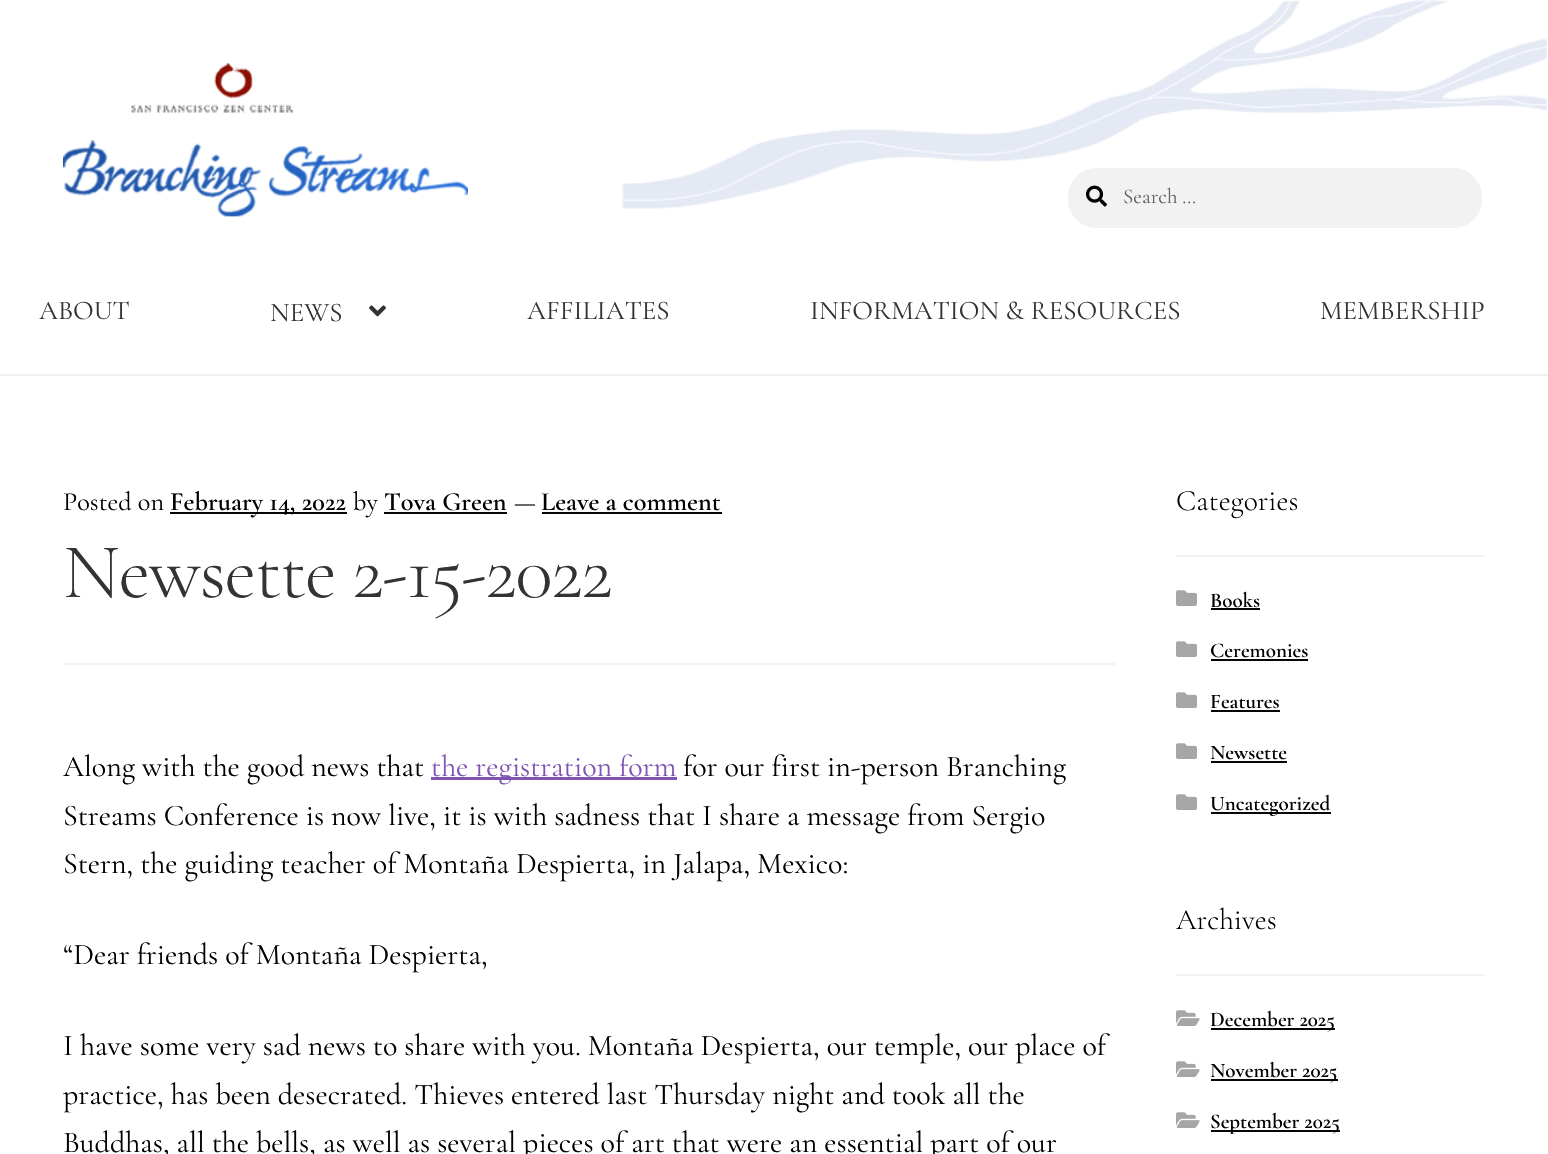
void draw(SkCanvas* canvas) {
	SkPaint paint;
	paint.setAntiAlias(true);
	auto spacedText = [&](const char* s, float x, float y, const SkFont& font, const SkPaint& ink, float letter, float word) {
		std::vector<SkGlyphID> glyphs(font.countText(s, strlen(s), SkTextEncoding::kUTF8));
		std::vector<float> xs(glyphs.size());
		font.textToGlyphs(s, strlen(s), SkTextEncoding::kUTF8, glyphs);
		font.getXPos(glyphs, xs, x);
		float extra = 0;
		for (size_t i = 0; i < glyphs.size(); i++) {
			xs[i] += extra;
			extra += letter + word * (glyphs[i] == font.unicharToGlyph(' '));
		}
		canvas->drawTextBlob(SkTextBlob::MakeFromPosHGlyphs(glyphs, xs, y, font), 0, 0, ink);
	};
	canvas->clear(0xffffffff);
	canvas->drawImageRect(SkImages::DeferredFromEncodedData(SkData::MakeFromFileName("img2.png")), SkRect::MakeXYWH(622, 0, 925, 209), SkSamplingOptions());
	paint.setColor(0xfff2f2f2);
	canvas->drawRoundRect(SkRect::MakeXYWH(1066.5, 166.5, 417, 63), 30.5, 30.5, paint);
	paint.setStroke(true);
	paint.setStrokeWidth(3);
	paint.setColor(0xffffffff);
	canvas->drawRoundRect(SkRect::MakeXYWH(1066.5, 166.5, 417, 63), 30.5, 30.5, paint);
	canvas->drawImageRect(SkImages::DeferredFromEncodedData(SkData::MakeFromFileName("img1.png")), SkRect::MakeXYWH(1086, 185, 21, 22), SkSamplingOptions());
	SkFont f1(fontMgr->matchFamilyStyle("Cormorant Garamond", SkFontStyle::Normal()), 21);
	f1.setSubpixel(true);
	paint.setStroke(false);
	paint.setColor(0xff616161);
	canvas->drawString("Search …", 1123, 203, f1, paint);
	paint.setColor(0xfff0f0f0);
	canvas->drawRect(SkRect::MakeXYWH(0, 374, 1548, 2), paint);
	canvas->drawImageRect(SkImages::DeferredFromEncodedData(SkData::MakeFromFileName("img3.png")), SkRect::MakeXYWH(63, 63, 405, 154), SkSamplingOptions());
	SkFont f2(fontMgr->matchFamilyStyle("Cormorant Garamond", SkFontStyle::Normal()), 27);
	f2.setSubpixel(true);
	paint.setColor(0xff333333);
	canvas->drawString("ABOUT", 39, 319, f2, paint);
	canvas->drawString("NEWS", 270, 321, f2, paint);
	canvas->drawImageRect(SkImages::DeferredFromEncodedData(SkData::MakeFromFileName("img4.png")), SkRect::MakeXYWH(369, 305, 17, 12), SkSamplingOptions());
	canvas->drawString("AFFILIATES", 527, 319, f2, paint);
	canvas->drawString("INFORMATION & RESOURCES", 810, 319, f2, paint);
	canvas->drawString("MEMBERSHIP", 1320, 319, f2, paint);
	paint.setColor(0xfff2f2f2);
	canvas->drawRect(SkRect::MakeXYWH(63, 663, 1052, 2), paint);
	SkFont f3(fontMgr->matchFamilyStyle("Cormorant Garamond", SkFontStyle::Normal()), 26.25);
	f3.setSubpixel(true);
	paint.setColor(0xff000000);
	canvas->drawString("Posted on", 63, 510, f3, paint);
	paint.setColor(0xff050505);
	canvas->drawRect(SkRect::MakeXYWH(170, 512, 177, 2), paint);
	SkFont f4(fontMgr->matchFamilyStyle("Cormorant Garamond", SkFontStyle(600, SkFontStyle::kNormal_Width, SkFontStyle::kUpright_Slant)), 26.25);
	f4.setSubpixel(true);
	paint.setColor(0xff000000);
	canvas->drawString("February 14, 2022", 170, 510, f4, paint);
	canvas->drawString("by", 353, 510, f3, paint);
	paint.setColor(0xff050505);
	canvas->drawRect(SkRect::MakeXYWH(384, 512, 123, 2), paint);
	paint.setColor(0xff000000);
	canvas->drawString("Tova Green", 384, 510, f4, paint);
	canvas->drawString("—", 514, 510, f3, paint);
	canvas->drawString("Leave a comment", 541, 510, f4, paint);
	paint.setColor(0xff050505);
	canvas->drawRect(SkRect::MakeXYWH(542, 512, 180, 2), paint);
	SkFont f5(fontMgr->matchFamilyStyle("Cormorant Garamond", SkFontStyle(300, SkFontStyle::kNormal_Width, SkFontStyle::kUpright_Slant)), 78.5);
	f5.setSubpixel(true);
	paint.setColor(0xff333333);
	spacedText("Newsette 2-15-2022", 63, 597, f5, paint, -1.5, 0);
	SkFont f6(fontMgr->matchFamilyStyle("Cormorant Garamond", SkFontStyle::Normal()), 30);
	f6.setSubpixel(true);
	paint.setColor(0xff000000);
	canvas->drawString("Along with the good news that", 63, 776, f6, paint);
	paint.setColor(0xff7f54b3);
	canvas->drawRect(SkRect::MakeXYWH(431, 777, 246, 3), paint);
	canvas->drawString("the registration form", 431, 776, f6, paint);
	paint.setColor(0xff000000);
	canvas->drawString("for our first in-person Branching", 683, 776, f6, paint);
	canvas->drawString("Streams Conference is now live, it is with sadness that I share a message from Sergio", 63, 825, f6, paint);
	canvas->drawString("Stern, the guiding teacher of Montaña Despierta, in Jalapa, Mexico:", 63, 873, f6, paint);
	canvas->drawString("“Dear friends of Montaña Despierta,", 63, 964, f6, paint);
	canvas->drawString("I have some very sad news to share with you. Montaña Despierta, our temple, our place of", 63, 1055, f6, paint);
	canvas->drawString("practice, has been desecrated. Thieves entered last Thursday night and took all the", 63, 1104, f6, paint);
	canvas->drawString("Buddhas, all the bells, as well as several pieces of art that were an essential part of our", 63, 1152, f6, paint);
	paint.setColor(0xfff2f2f2);
	canvas->drawRect(SkRect::MakeXYWH(1176, 555, 309, 2), paint);
	SkFont f7(fontMgr->matchFamilyStyle("Cormorant Garamond", SkFontStyle(300, SkFontStyle::kNormal_Width, SkFontStyle::kUpright_Slant)), 29.5);
	f7.setSubpixel(true);
	paint.setColor(0xff000000);
	canvas->drawString("Categories", 1176, 510, f7, paint);
	canvas->drawImageRect(SkImages::DeferredFromEncodedData(SkData::MakeFromFileName("img5.png")), SkRect::MakeXYWH(1176, 590, 21, 16), SkSamplingOptions());
	SkFont f8(fontMgr->matchFamilyStyle("Cormorant Garamond", SkFontStyle(600, SkFontStyle::kNormal_Width, SkFontStyle::kUpright_Slant)), 21);
	f8.setSubpixel(true);
	canvas->drawString("Books", 1210, 607, f8, paint);
	paint.setColor(0xff050505);
	canvas->drawRect(SkRect::MakeXYWH(1211, 608, 49, 2), paint);
	canvas->drawImageRect(SkImages::DeferredFromEncodedData(SkData::MakeFromFileName("img5.png")), SkRect::MakeXYWH(1176, 641, 21, 16), SkSamplingOptions());
	paint.setColor(0xff000000);
	canvas->drawString("Ceremonies", 1210, 657, f8, paint);
	paint.setColor(0xff050505);
	canvas->drawRect(SkRect::MakeXYWH(1211, 659, 97, 2), paint);
	canvas->drawImageRect(SkImages::DeferredFromEncodedData(SkData::MakeFromFileName("img5.png")), SkRect::MakeXYWH(1176, 692, 21, 16), SkSamplingOptions());
	paint.setColor(0xff000000);
	canvas->drawString("Features", 1210, 708, f8, paint);
	paint.setColor(0xff050505);
	canvas->drawRect(SkRect::MakeXYWH(1211, 710, 69, 2), paint);
	canvas->drawImageRect(SkImages::DeferredFromEncodedData(SkData::MakeFromFileName("img5.png")), SkRect::MakeXYWH(1176, 743, 21, 16), SkSamplingOptions());
	paint.setColor(0xff000000);
	canvas->drawString("Newsette", 1210, 759, f8, paint);
	paint.setColor(0xff050505);
	canvas->drawRect(SkRect::MakeXYWH(1211, 761, 76, 2), paint);
	canvas->drawImageRect(SkImages::DeferredFromEncodedData(SkData::MakeFromFileName("img5.png")), SkRect::MakeXYWH(1176, 794, 21, 16), SkSamplingOptions());
	canvas->drawRect(SkRect::MakeXYWH(1211, 812, 120, 2), paint);
	paint.setColor(0xff000000);
	canvas->drawString("Uncategorized", 1210, 810, f8, paint);
	paint.setColor(0xfff2f2f2);
	canvas->drawRect(SkRect::MakeXYWH(1176, 974, 309, 2), paint);
	paint.setColor(0xff000000);
	canvas->drawString("Archives", 1176, 929, f7, paint);
	canvas->drawImageRect(SkImages::DeferredFromEncodedData(SkData::MakeFromFileName("img6.png")), SkRect::MakeXYWH(1176, 1010, 24, 16), SkSamplingOptions());
	paint.setColor(0xff050505);
	canvas->drawRect(SkRect::MakeXYWH(1211, 1028, 124, 2), paint);
	paint.setColor(0xff000000);
	canvas->drawString("December 2025", 1210, 1026, f8, paint);
	canvas->drawImageRect(SkImages::DeferredFromEncodedData(SkData::MakeFromFileName("img6.png")), SkRect::MakeXYWH(1176, 1061, 24, 16), SkSamplingOptions());
	paint.setColor(0xff050505);
	canvas->drawRect(SkRect::MakeXYWH(1211, 1079, 127, 2), paint);
	paint.setColor(0xff000000);
	canvas->drawString("November 2025", 1210, 1077, f8, paint);
	canvas->drawImageRect(SkImages::DeferredFromEncodedData(SkData::MakeFromFileName("img6.png")), SkRect::MakeXYWH(1176, 1112, 24, 16), SkSamplingOptions());
	paint.setColor(0xff050505);
	canvas->drawRect(SkRect::MakeXYWH(1211, 1130, 129, 2), paint);
	paint.setColor(0xff000000);
	canvas->drawString("September 2025", 1210, 1128, f8, paint);
}
